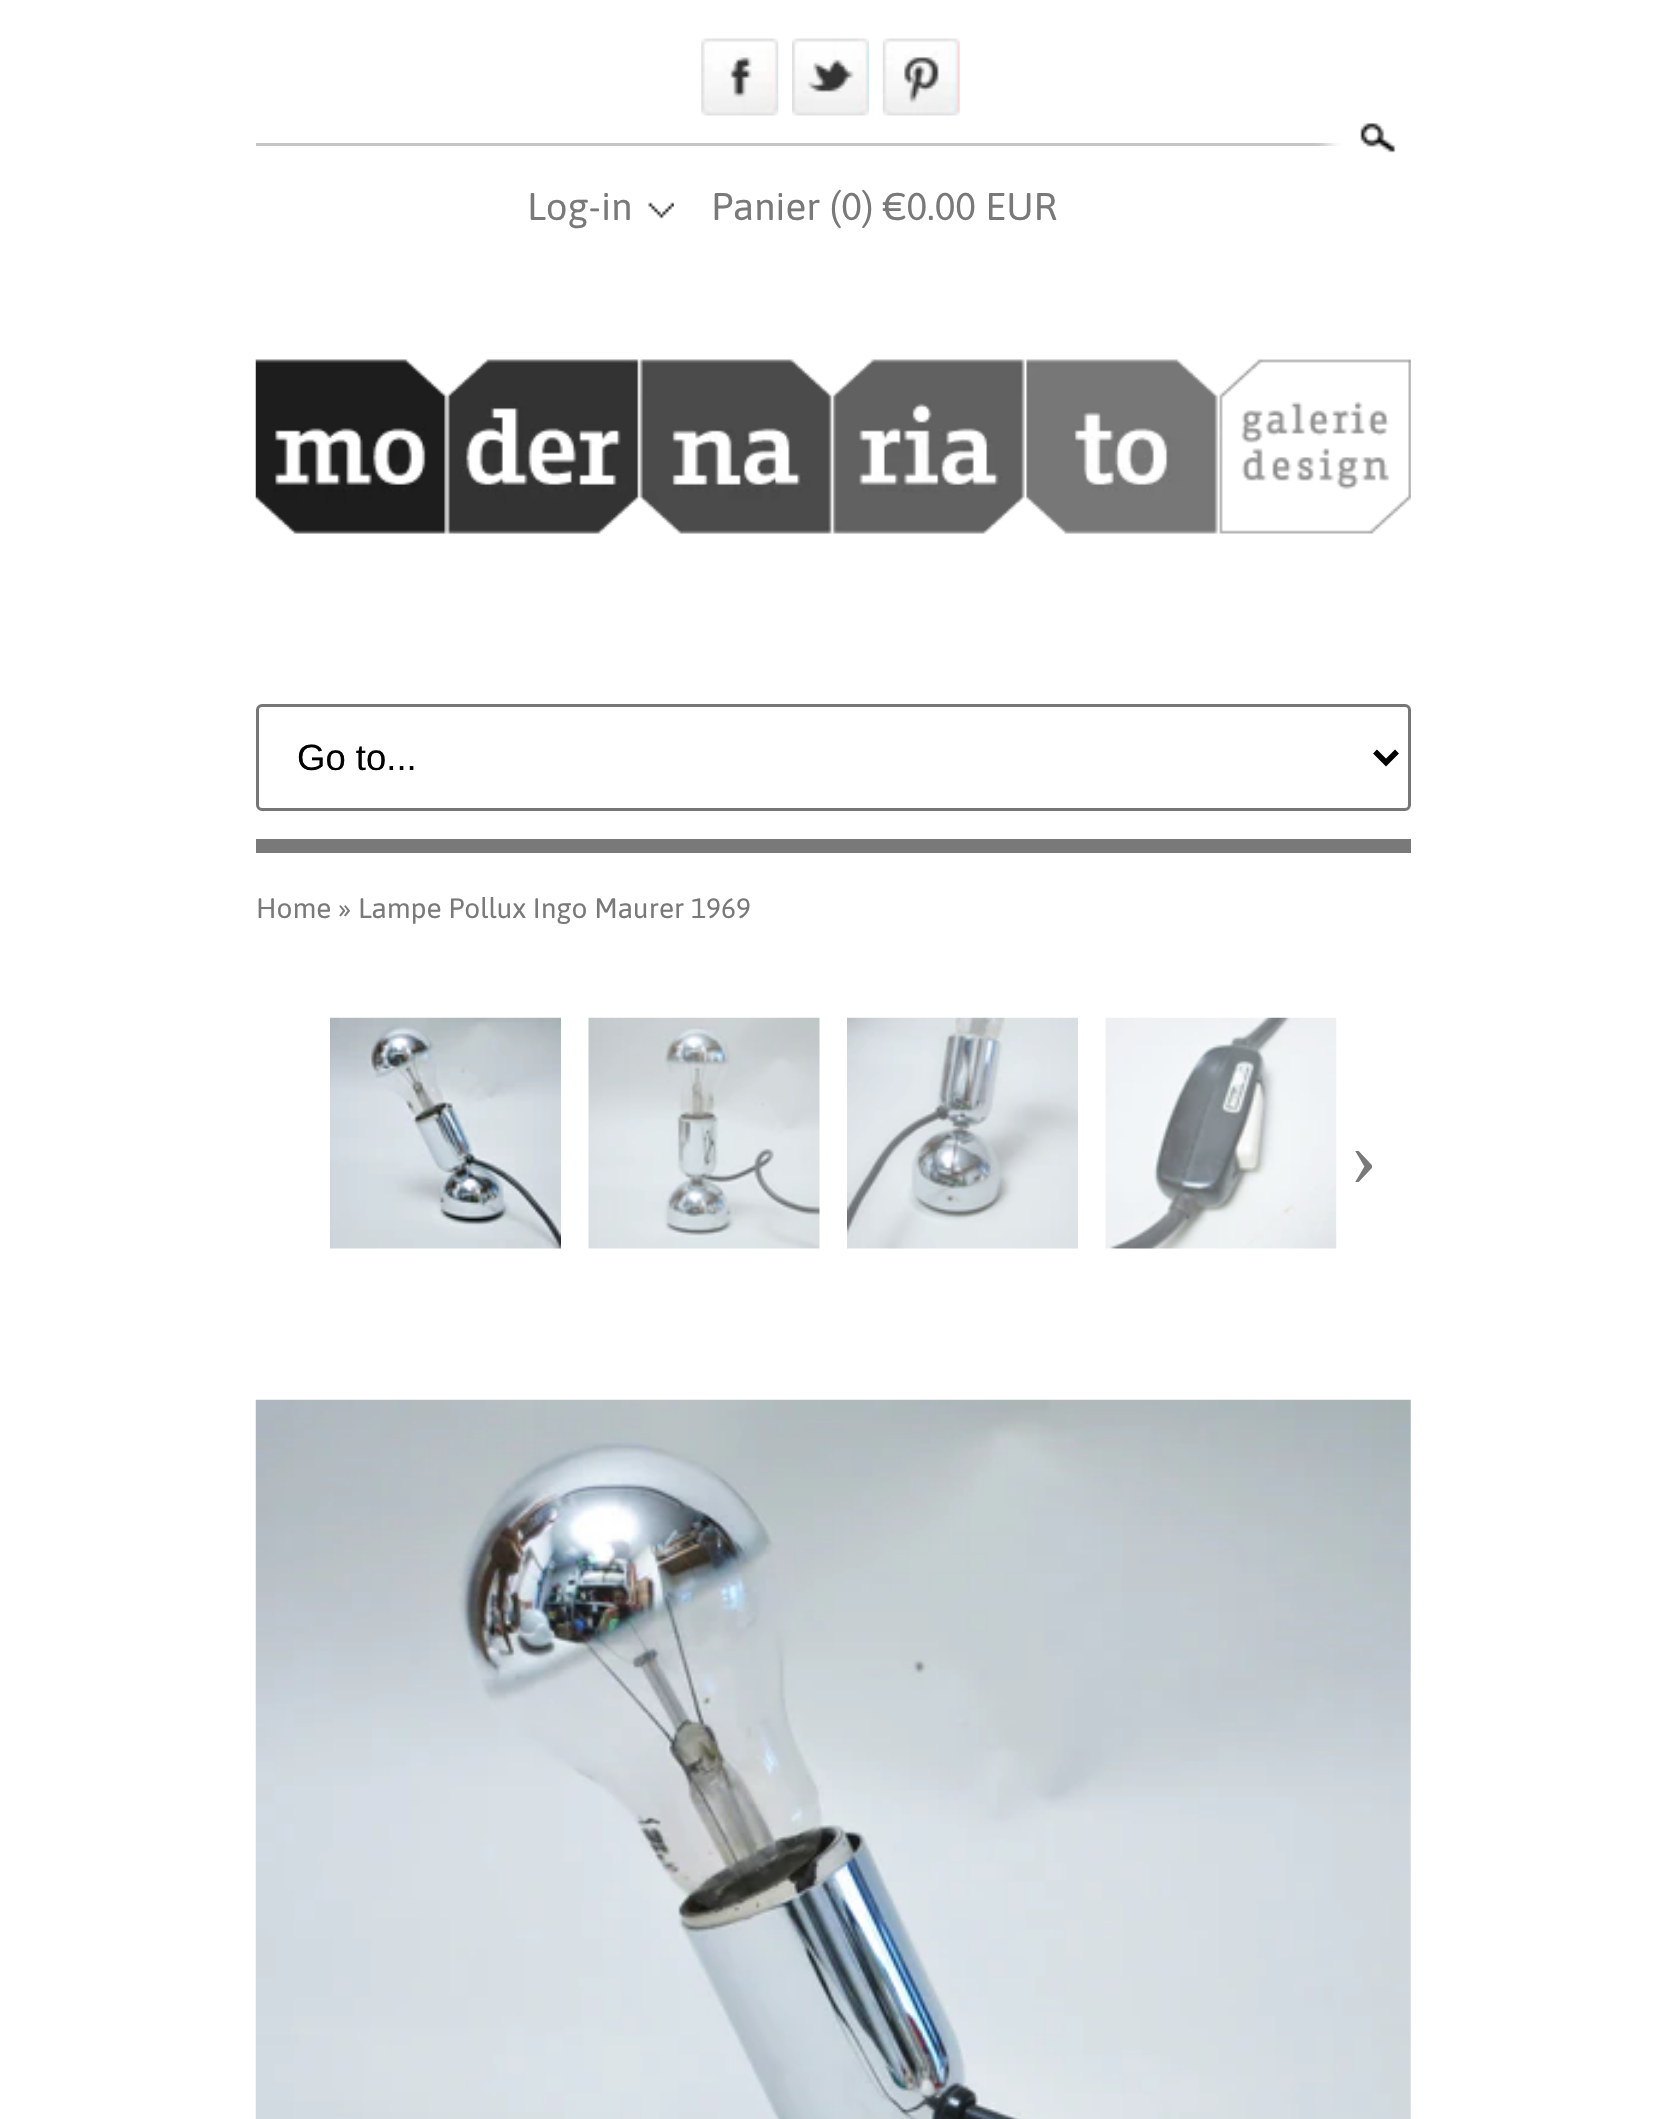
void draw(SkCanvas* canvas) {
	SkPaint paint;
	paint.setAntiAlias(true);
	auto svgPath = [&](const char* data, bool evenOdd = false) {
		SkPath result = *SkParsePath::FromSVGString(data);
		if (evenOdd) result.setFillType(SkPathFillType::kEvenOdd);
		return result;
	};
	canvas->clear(0xffffffff);
	paint.setColor(0xffc5c5c5);
	canvas->drawRect(SkRect::MakeXYWH(256, 143, 1089, 3), paint);
	canvas->drawImageRect(SkImages::DeferredFromEncodedData(SkData::MakeFromFileName("img1.png")), SkRect::MakeXYWH(701, 38, 78, 78), SkSamplingOptions());
	canvas->drawImageRect(SkImages::DeferredFromEncodedData(SkData::MakeFromFileName("img2.png")), SkRect::MakeXYWH(792, 38, 77, 78), SkSamplingOptions());
	canvas->drawImageRect(SkImages::DeferredFromEncodedData(SkData::MakeFromFileName("img3.png")), SkRect::MakeXYWH(882, 38, 78, 78), SkSamplingOptions());
	canvas->drawImageRect(SkImages::DeferredFromEncodedData(SkData::MakeFromFileName("img4.png")), SkRect::MakeXYWH(648, 202, 26, 17), SkSamplingOptions());
	SkFont f1(fontMgr->matchFamilyStyle("Asap", SkFontStyle::Normal()), 38.5);
	f1.setSubpixel(true);
	paint.setColor(0xff797979);
	canvas->drawString("Log-in", 527, 220, f1, paint);
	canvas->drawString("Panier (0) €0.00 EUR", 711, 220, f1, paint);
	paint.setColor(0xffffffff);
	paint.setMaskFilter(SkMaskFilter::MakeBlur(kNormal_SkBlurStyle, 7));
	canvas->drawRect(SkRect::MakeXYWH(1328, 25, 72, 225), paint);
	paint.setMaskFilter(nullptr);
	canvas->drawImageRect(SkImages::DeferredFromEncodedData(SkData::MakeFromFileName("img5.png")), SkRect::MakeXYWH(1360, 123, 36, 30), SkSamplingOptions());
	canvas->drawImageRect(SkImages::DeferredFromEncodedData(SkData::MakeFromFileName("img6.png")), SkRect::MakeXYWH(255, 359, 1156, 175), SkSamplingOptions());
	paint.setColor(0xff797979);
	canvas->drawRect(SkRect::MakeXYWH(256, 839, 1155, 14), paint);
	paint.setStroke(true);
	paint.setStrokeWidth(3);
	paint.setColor(0xff767676);
	canvas->drawRoundRect(SkRect::MakeXYWH(257.5, 705.5, 1152, 104), 4.5, 4.5, paint);
	paint.setStrokeWidth(5.5);
	paint.setColor(0xff000000);
	canvas->drawPath(svgPath("M1375 751.5L1386 762.5L1397 751.5"), paint);
	SkFont f2(fontMgr->matchFamilyStyle("Liberation Sans", SkFontStyle::Normal()), 36.5);
	f2.setSubpixel(true);
	paint.setStroke(false);
	canvas->drawString("Go to...", 297, 770, f2, paint);
	SkFont f3(fontMgr->matchFamilyStyle("Asap", SkFontStyle::Normal()), 28);
	f3.setSubpixel(true);
	paint.setColor(0xff797979);
	canvas->drawString("Home » Lampe Pollux Ingo Maurer 1969", 256, 918, f3, paint);
	canvas->drawImageRect(SkImages::DeferredFromEncodedData(SkData::MakeFromFileName("img7.png")), SkRect::MakeXYWH(330, 1017, 231, 232), SkSamplingOptions());
	canvas->drawImageRect(SkImages::DeferredFromEncodedData(SkData::MakeFromFileName("img8.png")), SkRect::MakeXYWH(588, 1017, 232, 232), SkSamplingOptions());
	canvas->drawImageRect(SkImages::DeferredFromEncodedData(SkData::MakeFromFileName("img9.png")), SkRect::MakeXYWH(847, 1017, 231, 232), SkSamplingOptions());
	canvas->drawImageRect(SkImages::DeferredFromEncodedData(SkData::MakeFromFileName("img10.png")), SkRect::MakeXYWH(1105, 1017, 232, 232), SkSamplingOptions());
	SkFont f4(fontMgr->matchFamilyStyle("Liberation Serif", SkFontStyle::Normal()), 82);
	f4.setSubpixel(true);
	canvas->drawString("›", 1350, 1185, f4, paint);
	canvas->drawImageRect(SkImages::DeferredFromEncodedData(SkData::MakeFromFileName("img11.png")), SkRect::MakeXYWH(255, 1399, 1156, 720), SkSamplingOptions());
}
